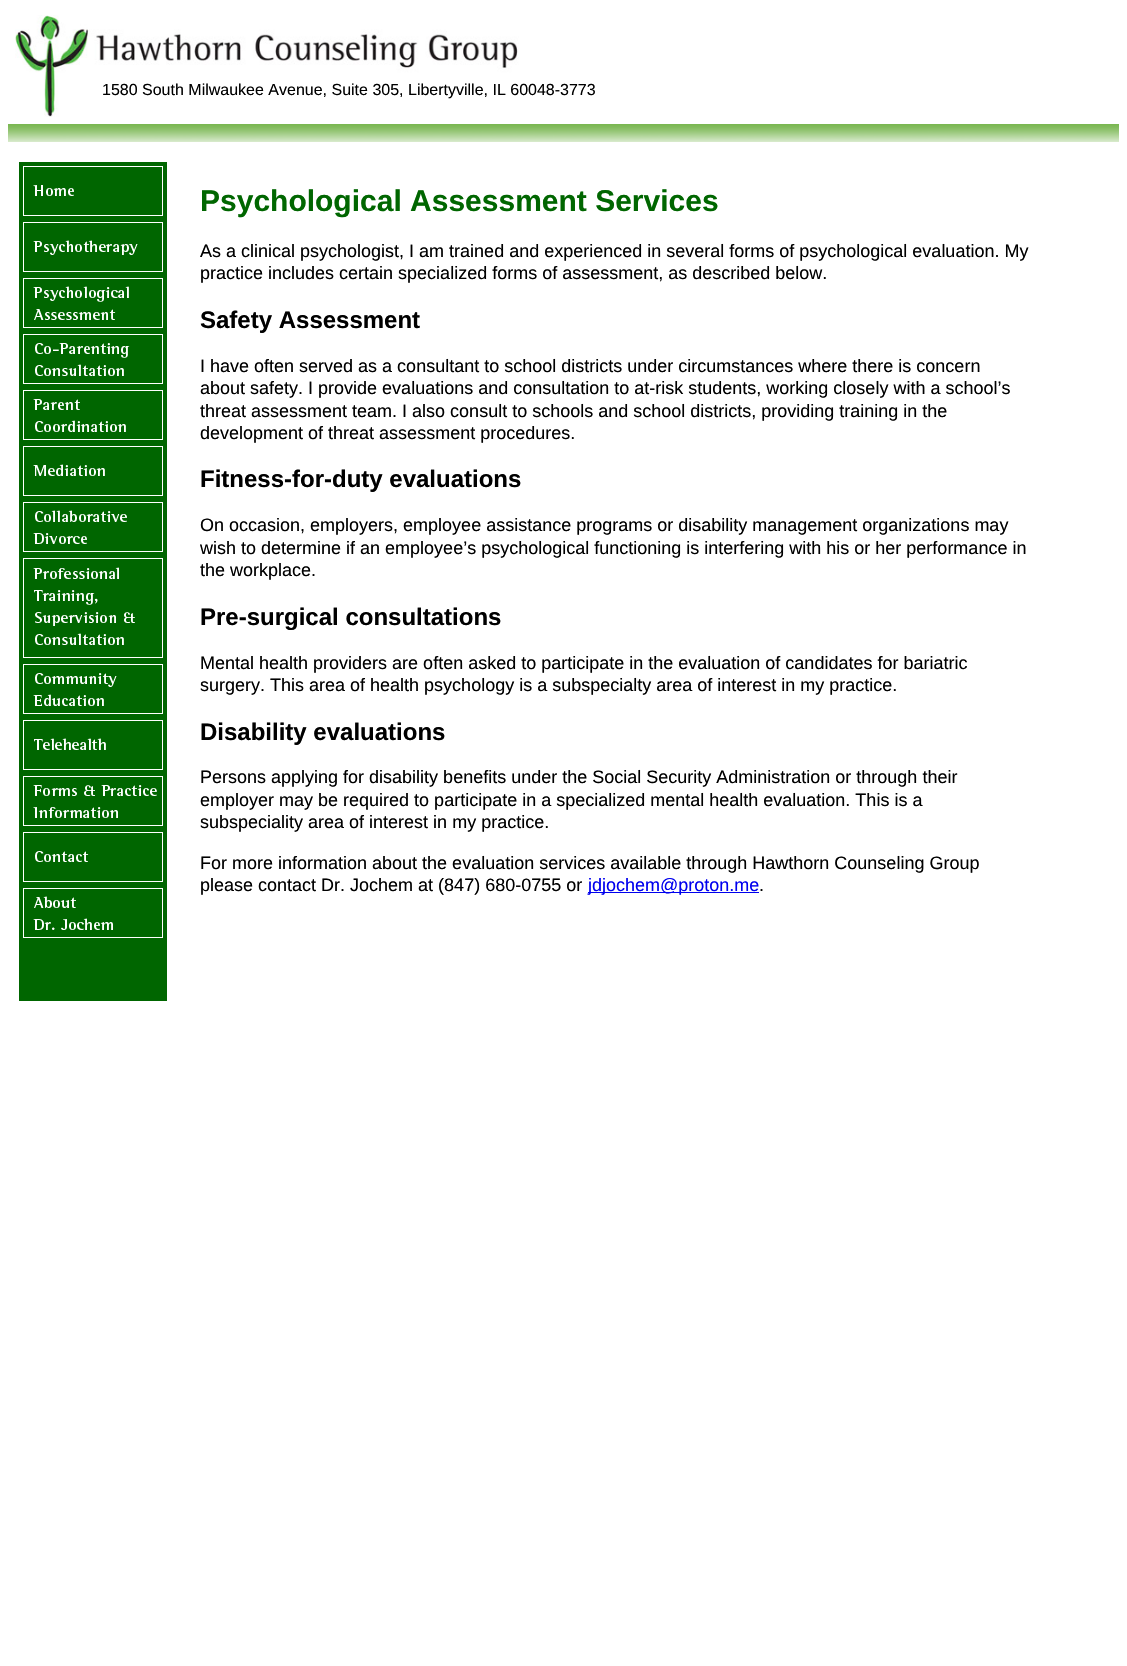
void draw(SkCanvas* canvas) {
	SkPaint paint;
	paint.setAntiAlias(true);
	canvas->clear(0xffffffff);
	canvas->drawImageRect(SkImages::DeferredFromEncodedData(SkData::MakeFromFileName("img1.png")), SkRect::MakeXYWH(15, 15, 504, 102), SkSamplingOptions());
	SkFont f1(fontMgr->matchFamilyStyle("Liberation Sans", SkFontStyle::Normal()), 16);
	f1.setSubpixel(true);
	paint.setColor(0xff000000);
	canvas->drawString("1580 South Milwaukee Avenue, Suite 305, Libertyville, IL 60048-3773", 102, 95, f1, paint);
	canvas->drawImageRect(SkImages::DeferredFromEncodedData(SkData::MakeFromFileName("img2.png")), SkRect::MakeXYWH(8, 124, 1111, 18), SkSamplingOptions());
	paint.setColor(0xff006600);
	canvas->drawRect(SkRect::MakeXYWH(19, 162, 148, 839), paint);
	canvas->drawImageRect(SkImages::DeferredFromEncodedData(SkData::MakeFromFileName("img3.png")), SkRect::MakeXYWH(23, 166, 140, 50), SkSamplingOptions());
	canvas->drawImageRect(SkImages::DeferredFromEncodedData(SkData::MakeFromFileName("img4.png")), SkRect::MakeXYWH(23, 222, 140, 50), SkSamplingOptions());
	canvas->drawImageRect(SkImages::DeferredFromEncodedData(SkData::MakeFromFileName("img5.png")), SkRect::MakeXYWH(23, 278, 140, 50), SkSamplingOptions());
	canvas->drawImageRect(SkImages::DeferredFromEncodedData(SkData::MakeFromFileName("img6.png")), SkRect::MakeXYWH(23, 334, 140, 50), SkSamplingOptions());
	canvas->drawImageRect(SkImages::DeferredFromEncodedData(SkData::MakeFromFileName("img7.png")), SkRect::MakeXYWH(23, 390, 140, 50), SkSamplingOptions());
	canvas->drawImageRect(SkImages::DeferredFromEncodedData(SkData::MakeFromFileName("img8.png")), SkRect::MakeXYWH(23, 446, 140, 50), SkSamplingOptions());
	canvas->drawImageRect(SkImages::DeferredFromEncodedData(SkData::MakeFromFileName("img9.png")), SkRect::MakeXYWH(23, 502, 140, 50), SkSamplingOptions());
	canvas->drawImageRect(SkImages::DeferredFromEncodedData(SkData::MakeFromFileName("img10.png")), SkRect::MakeXYWH(23, 558, 140, 100), SkSamplingOptions());
	canvas->drawImageRect(SkImages::DeferredFromEncodedData(SkData::MakeFromFileName("img11.png")), SkRect::MakeXYWH(23, 664, 140, 50), SkSamplingOptions());
	canvas->drawImageRect(SkImages::DeferredFromEncodedData(SkData::MakeFromFileName("img12.png")), SkRect::MakeXYWH(23, 720, 140, 50), SkSamplingOptions());
	canvas->drawImageRect(SkImages::DeferredFromEncodedData(SkData::MakeFromFileName("img13.png")), SkRect::MakeXYWH(23, 776, 140, 50), SkSamplingOptions());
	canvas->drawImageRect(SkImages::DeferredFromEncodedData(SkData::MakeFromFileName("img14.png")), SkRect::MakeXYWH(23, 832, 140, 50), SkSamplingOptions());
	canvas->drawImageRect(SkImages::DeferredFromEncodedData(SkData::MakeFromFileName("img15.png")), SkRect::MakeXYWH(23, 888, 140, 50), SkSamplingOptions());
	SkFont f2(fontMgr->matchFamilyStyle("Liberation Sans", SkFontStyle::Bold()), 30);
	f2.setSubpixel(true);
	canvas->drawString("Psychological Assessment Services", 200, 211, f2, paint);
	SkFont f3(fontMgr->matchFamilyStyle("Liberation Sans", SkFontStyle::Normal()), 18);
	f3.setSubpixel(true);
	paint.setColor(0xff000000);
	canvas->drawString("As a clinical psychologist, I am trained and experienced in several forms of psychological evaluation. My", 200, 257, f3, paint);
	canvas->drawString("practice includes certain specialized forms of assessment, as described below.", 200, 279, f3, paint);
	SkFont f4(fontMgr->matchFamilyStyle("Liberation Sans", SkFontStyle::Bold()), 24);
	f4.setSubpixel(true);
	canvas->drawString("Safety Assessment", 200, 328, f4, paint);
	canvas->drawString("I have often served as a consultant to school districts under circumstances where there is concern", 200, 372, f3, paint);
	canvas->drawString("about safety. I provide evaluations and consultation to at-risk students, working closely with a school’s", 200, 394, f3, paint);
	canvas->drawString("threat assessment team. I also consult to schools and school districts, providing training in the", 200, 417, f3, paint);
	canvas->drawString("development of threat assessment procedures.", 200, 439, f3, paint);
	canvas->drawString("Fitness-for-duty evaluations", 200, 487, f4, paint);
	canvas->drawString("On occasion, employers, employee assistance programs or disability management organizations may", 200, 531, f3, paint);
	canvas->drawString("wish to determine if an employee’s psychological functioning is interfering with his or her performance in", 200, 554, f3, paint);
	canvas->drawString("the workplace.", 200, 576, f3, paint);
	canvas->drawString("Pre-surgical consultations", 200, 625, f4, paint);
	canvas->drawString("Mental health providers are often asked to participate in the evaluation of candidates for bariatric", 200, 669, f3, paint);
	canvas->drawString("surgery. This area of health psychology is a subspecialty area of interest in my practice.", 200, 691, f3, paint);
	canvas->drawString("Disability evaluations", 200, 740, f4, paint);
	canvas->drawString("Persons applying for disability benefits under the Social Security Administration or through their", 200, 783, f3, paint);
	canvas->drawString("employer may be required to participate in a specialized mental health evaluation. This is a", 200, 806, f3, paint);
	canvas->drawString("subspeciality area of interest in my practice.", 200, 828, f3, paint);
	canvas->drawString("For more information about the evaluation services available through Hawthorn Counseling Group", 200, 869, f3, paint);
	canvas->drawString("please contact Dr. Jochem at (847) 680-0755 or", 200, 891, f3, paint);
	paint.setColor(0xff0000ee);
	canvas->drawRect(SkRect::MakeXYWH(588, 892, 171, 1), paint);
	canvas->drawString("jdjochem@proton.me", 588, 891, f3, paint);
	paint.setColor(0xff000000);
	canvas->drawString(".", 759, 891, f3, paint);
}
